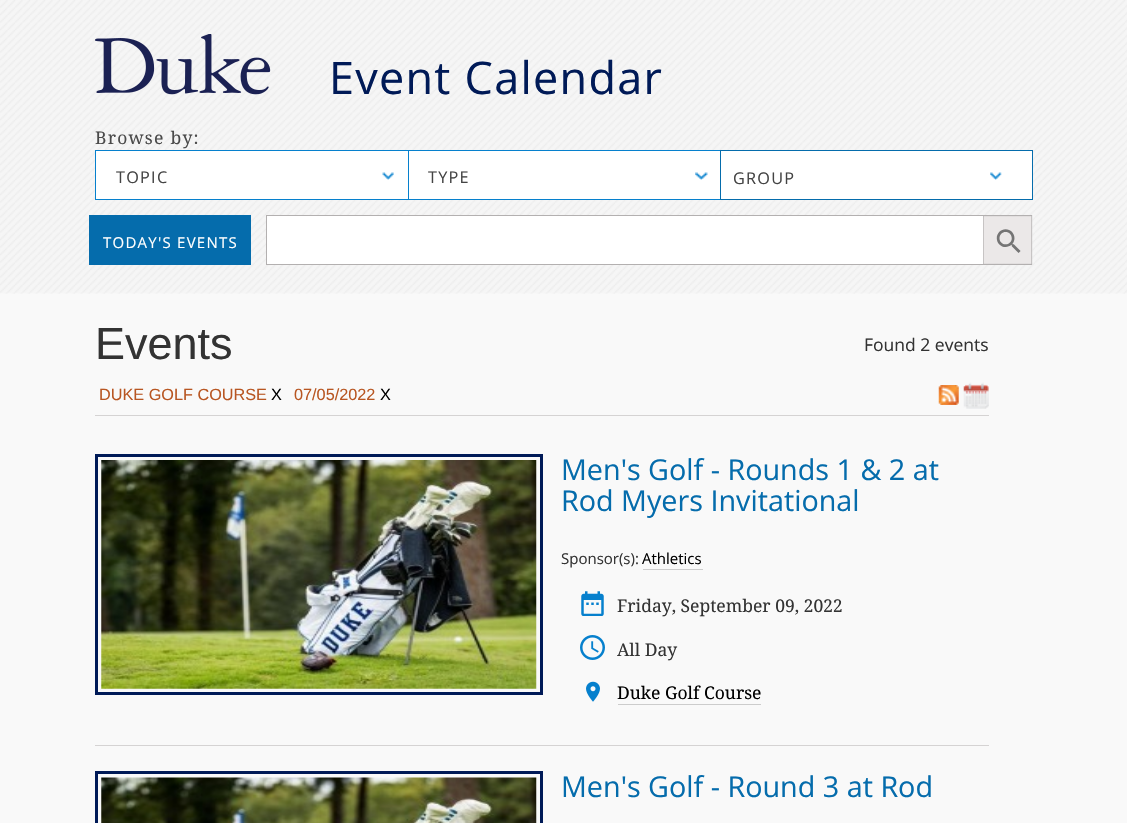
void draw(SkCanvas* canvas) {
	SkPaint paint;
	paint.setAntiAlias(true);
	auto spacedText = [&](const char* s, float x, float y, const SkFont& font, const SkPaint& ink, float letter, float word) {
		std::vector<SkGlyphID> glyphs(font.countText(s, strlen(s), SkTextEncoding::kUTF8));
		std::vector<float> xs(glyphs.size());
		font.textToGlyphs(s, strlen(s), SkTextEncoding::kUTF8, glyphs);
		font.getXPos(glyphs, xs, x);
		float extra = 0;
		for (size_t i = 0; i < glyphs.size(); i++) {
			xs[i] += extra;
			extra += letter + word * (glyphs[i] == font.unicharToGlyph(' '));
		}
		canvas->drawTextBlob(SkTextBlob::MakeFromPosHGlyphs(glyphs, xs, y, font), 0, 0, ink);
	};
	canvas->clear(0xffffffff);
	canvas->drawImageRect(SkImages::DeferredFromEncodedData(SkData::MakeFromFileName("img1.png")), SkRect::MakeXYWH(0, 0, 1127, 294), SkSamplingOptions());
	canvas->drawImageRect(SkImages::DeferredFromEncodedData(SkData::MakeFromFileName("img2.png")), SkRect::MakeXYWH(95, 34, 176, 61), SkSamplingOptions());
	SkFont f1(fontMgr->matchFamilyStyle("Open Sans", SkFontStyle::Normal()), 45);
	f1.setSubpixel(true);
	paint.setColor(0xff001a57);
	spacedText("Event Calendar", 329, 94, f1, paint, 1.25, 0);
	SkFont f2(fontMgr->matchFamilyStyle("Droid Serif", SkFontStyle::Normal()), 17.5);
	f2.setSubpixel(true);
	paint.setColor(0xff4a4a4a);
	spacedText("Browse by:", 95, 144, f2, paint, 1.25, 0);
	paint.setColor(0xffffffff);
	canvas->drawRect(SkRect::MakeXYWH(96, 151, 312, 48), paint);
	paint.setColor(0xff0680cd);
	canvas->drawRect(SkRect::MakeXYWH(95, 150, 625, 1), paint);
	canvas->drawRect(SkRect::MakeXYWH(95, 199, 625, 1), paint);
	canvas->drawRect(SkRect::MakeXYWH(95, 150, 1, 50), paint);
	SkFont f3(fontMgr->matchFamilyStyle("Open Sans", SkFontStyle::Normal()), 16.25);
	f3.setSubpixel(true);
	paint.setColor(0xff444444);
	spacedText("TOPIC", 116, 183, f3, paint, 1.25, 0);
	canvas->drawImageRect(SkImages::DeferredFromEncodedData(SkData::MakeFromFileName("img3.png")), SkRect::MakeXYWH(382, 172, 12, 8), SkSamplingOptions());
	paint.setColor(0xffffffff);
	canvas->drawRect(SkRect::MakeXYWH(409, 151, 311, 48), paint);
	paint.setColor(0xff0680cd);
	canvas->drawRect(SkRect::MakeXYWH(408, 150, 1, 50), paint);
	paint.setColor(0xff444444);
	spacedText("TYPE", 428, 183, f3, paint, 1.25, 0);
	canvas->drawImageRect(SkImages::DeferredFromEncodedData(SkData::MakeFromFileName("img4.png")), SkRect::MakeXYWH(695, 172, 13, 8), SkSamplingOptions());
	paint.setColor(0xffffffff);
	canvas->drawRect(SkRect::MakeXYWH(720.5, 150.5, 312, 49), paint);
	paint.setStroke(true);
	paint.setStrokeWidth(1);
	paint.setColor(0xff056cac);
	canvas->drawRect(SkRect::MakeXYWH(720.5, 150.5, 312, 49), paint);
	canvas->drawImageRect(SkImages::DeferredFromEncodedData(SkData::MakeFromFileName("img5.png")), SkRect::MakeXYWH(990, 172, 12, 8), SkSamplingOptions());
	paint.setStroke(false);
	paint.setColor(0xff444444);
	spacedText("GROUP", 733, 184, f3, paint, 1.25, 0);
	paint.setColor(0xff056cac);
	canvas->drawRect(SkRect::MakeXYWH(89, 215, 162, 50), paint);
	SkFont f4(fontMgr->matchFamilyStyle("Open Sans", SkFontStyle::Normal()), 15);
	f4.setSubpixel(true);
	paint.setColor(0xffffffff);
	spacedText("TODAY'S EVENTS", 103, 248, f4, paint, 1.25, 0);
	canvas->drawRect(SkRect::MakeXYWH(267, 216, 716, 48), paint);
	paint.setColor(0xffb3b0b0);
	canvas->drawRect(SkRect::MakeXYWH(266, 215, 717, 1), paint);
	canvas->drawRect(SkRect::MakeXYWH(266, 264, 717, 1), paint);
	canvas->drawRect(SkRect::MakeXYWH(266, 215, 1, 50), paint);
	canvas->drawImageRect(SkImages::DeferredFromEncodedData(SkData::MakeFromFileName("img6.png")), SkRect::MakeXYWH(983, 215, 50, 50), SkSamplingOptions());
	paint.setColor(0xfff9f9f9);
	canvas->drawRect(SkRect::MakeXYWH(0, 294, 1127, 529), paint);
	SkFont f5(fontMgr->matchFamilyStyle("Liberation Sans", SkFontStyle::Normal()), 45);
	f5.setSubpixel(true);
	paint.setColor(0xff333333);
	canvas->drawString("Events", 95, 359, f5, paint);
	SkFont f6(fontMgr->matchFamilyStyle("Open Sans", SkFontStyle::Normal()), 17.5);
	f6.setSubpixel(true);
	canvas->drawString("Found 2 events", 864, 351, f6, paint);
	paint.setColor(0xffd5d3d3);
	canvas->drawRect(SkRect::MakeXYWH(95, 415, 894, 1), paint);
	SkFont f7(fontMgr->matchFamilyStyle("Liberation Sans", SkFontStyle::Normal()), 16.25);
	f7.setSubpixel(true);
	paint.setColor(0xffb85622);
	canvas->drawString("DUKE GOLF COURSE", 99, 400, f7, paint);
	paint.setColor(0xff000000);
	canvas->drawString("X", 271, 400, f7, paint);
	paint.setColor(0xffb85622);
	canvas->drawString("07/05/2022", 294, 400, f7, paint);
	paint.setColor(0xff000000);
	canvas->drawString("X", 380, 400, f7, paint);
	canvas->drawImageRect(SkImages::DeferredFromEncodedData(SkData::MakeFromFileName("img7.png")), SkRect::MakeXYWH(938, 385, 21, 20), SkSamplingOptions());
	canvas->drawImageRect(SkImages::DeferredFromEncodedData(SkData::MakeFromFileName("img8.png")), SkRect::MakeXYWH(963, 382, 26, 27), SkSamplingOptions());
	paint.setColor(0xffd5d3d3);
	canvas->drawRect(SkRect::MakeXYWH(95, 745, 894, 1), paint);
	paint.setStroke(true);
	paint.setStrokeWidth(3);
	paint.setColor(0xff001a57);
	canvas->drawRect(SkRect::MakeXYWH(96.5, 455.5, 445, 238), paint);
	canvas->drawImageRect(SkImages::DeferredFromEncodedData(SkData::MakeFromFileName("img9.png")), SkRect::MakeXYWH(101, 460, 436, 229), SkSamplingOptions());
	SkFont f8(fontMgr->matchFamilyStyle("Open Sans", SkFontStyle::Normal()), 28.75);
	f8.setSubpixel(true);
	paint.setStroke(false);
	paint.setColor(0xff056cac);
	canvas->drawString("Men's Golf - Rounds 1 & 2 at", 561, 480, f8, paint);
	canvas->drawString("Rod Myers Invitational", 561, 511, f8, paint);
	paint.setColor(0xff333333);
	canvas->drawString("Sponsor(s):", 561, 564, f4, paint);
	paint.setColor(0xff000000);
	canvas->drawString("Athletics", 642, 564, f4, paint);
	paint.setColor(0xffcccccc);
	canvas->drawRect(SkRect::MakeXYWH(643, 569, 60, 1), paint);
	canvas->drawImageRect(SkImages::DeferredFromEncodedData(SkData::MakeFromFileName("img10.png")), SkRect::MakeXYWH(581, 591, 23, 25), SkSamplingOptions());
	paint.setColor(0xff333333);
	canvas->drawString("Friday, September 09, 2022", 617, 612, f2, paint);
	canvas->drawImageRect(SkImages::DeferredFromEncodedData(SkData::MakeFromFileName("img11.png")), SkRect::MakeXYWH(580, 635, 25, 25), SkSamplingOptions());
	canvas->drawString("All Day", 617, 656, f2, paint);
	canvas->drawImageRect(SkImages::DeferredFromEncodedData(SkData::MakeFromFileName("img12.png")), SkRect::MakeXYWH(586, 681, 14, 21), SkSamplingOptions());
	paint.setColor(0xff000000);
	canvas->drawString("Duke Golf Course", 617, 699, f2, paint);
	paint.setColor(0xffcccccc);
	canvas->drawRect(SkRect::MakeXYWH(618, 704, 143, 1), paint);
	paint.setStroke(true);
	paint.setColor(0xff001a57);
	canvas->drawRect(SkRect::MakeXYWH(96.5, 772.5, 445, 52), paint);
	canvas->drawImageRect(SkImages::DeferredFromEncodedData(SkData::MakeFromFileName("img13.png")), SkRect::MakeXYWH(101, 777, 436, 46), SkSamplingOptions());
	paint.setStroke(false);
	paint.setColor(0xff056cac);
	canvas->drawString("Men's Golf - Round 3 at Rod", 561, 797, f8, paint);
}
